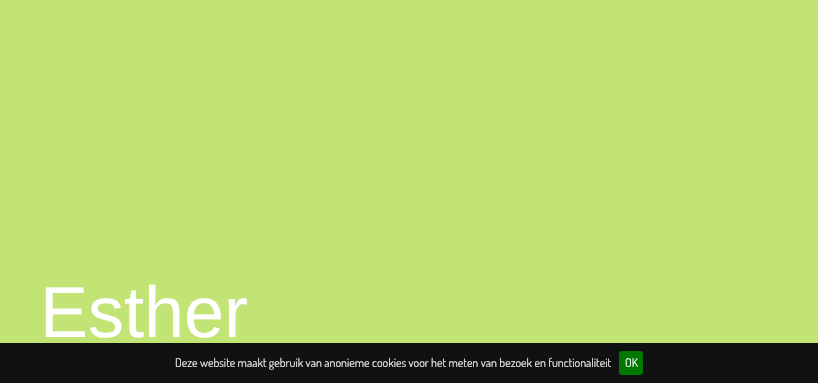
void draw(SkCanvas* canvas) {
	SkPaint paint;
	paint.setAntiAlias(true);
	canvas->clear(0xffc2e474);
	SkFont f1(fontMgr->matchFamilyStyle("Liberation Sans", SkFontStyle::Normal()), 72);
	f1.setSubpixel(true);
	paint.setColor(0xffffffff);
	canvas->drawString("Esther", 40, 337, f1, paint);
	paint.setColor(0xff111111);
	canvas->drawRect(SkRect::MakeXYWH(0, 343, 818, 40), paint);
	SkFont f2(fontMgr->matchFamilyStyle("Dosis", SkFontStyle::Normal()), 12);
	f2.setSubpixel(true);
	paint.setColor(0xffeeeeee);
	canvas->drawString("Deze website maakt gebruik van anonieme cookies voor het meten van bezoek en functionaliteit", 175, 367, f2, paint);
	paint.setColor(0xff007700);
	canvas->drawRoundRect(SkRect::MakeXYWH(619, 351, 24, 24), 3, 3, paint);
	paint.setColor(0xffffffff);
	canvas->drawString("OK", 625, 367, f2, paint);
}
